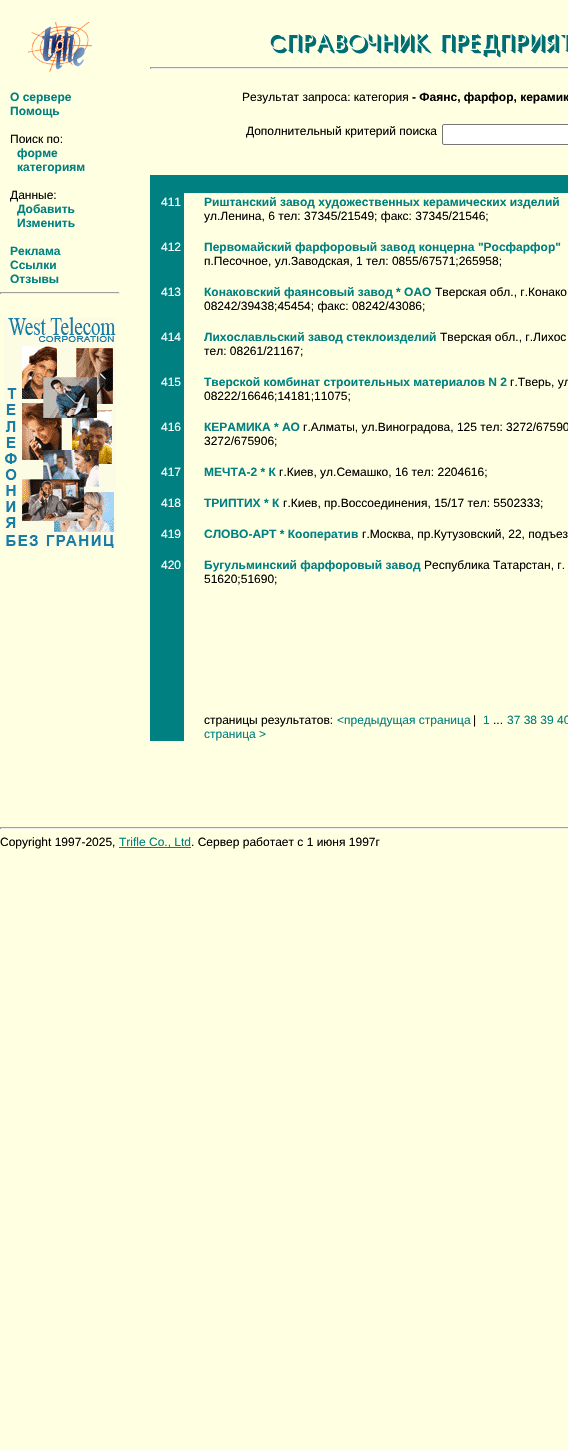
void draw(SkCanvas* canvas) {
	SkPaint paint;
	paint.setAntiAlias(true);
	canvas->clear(0xffffffe1);
	canvas->drawImageRect(SkImages::DeferredFromEncodedData(SkData::MakeFromFileName("img1.png")), SkRect::MakeXYWH(28, 22, 64, 50), SkSamplingOptions());
	canvas->drawImageRect(SkImages::DeferredFromEncodedData(SkData::MakeFromFileName("img2.png")), SkRect::MakeXYWH(270, 33, 298, 25), SkSamplingOptions());
	paint.setColor(0xff9f9f9f);
	canvas->drawRect(SkRect::MakeXYWH(150, 67, 418, 1), paint);
	paint.setColor(0xffeeeeee);
	canvas->drawRect(SkRect::MakeXYWH(150, 68, 418, 1), paint);
	paint.setColor(0xff9f9f9f);
	canvas->drawRect(SkRect::MakeXYWH(150, 67, 1, 2), paint);
	SkFont f1(fontMgr->matchFamilyStyle("Liberation Sans", SkFontStyle::Bold()), 12);
	f1.setSubpixel(true);
	paint.setColor(0xff008080);
	canvas->drawString("О сервере", 10, 101, f1, paint);
	canvas->drawString("Помощь", 10, 115, f1, paint);
	SkFont f2(fontMgr->matchFamilyStyle("Liberation Sans", SkFontStyle::Normal()), 12);
	f2.setSubpixel(true);
	paint.setColor(0xff000000);
	canvas->drawString("Поиск по:", 10, 143, f2, paint);
	paint.setColor(0xff008080);
	canvas->drawString("форме", 17, 157, f1, paint);
	canvas->drawString("категориям", 17, 171, f1, paint);
	paint.setColor(0xff000000);
	canvas->drawString("Данные:", 10, 199, f2, paint);
	paint.setColor(0xff008080);
	canvas->drawString("Добавить", 17, 213, f1, paint);
	canvas->drawString("Изменить", 17, 227, f1, paint);
	canvas->drawString("Реклама", 10, 255, f1, paint);
	canvas->drawString("Ссылки", 10, 269, f1, paint);
	canvas->drawString("Отзывы", 10, 283, f1, paint);
	paint.setColor(0xff9f9f9f);
	canvas->drawRect(SkRect::MakeXYWH(0, 292, 120, 1), paint);
	paint.setColor(0xffeeeeee);
	canvas->drawRect(SkRect::MakeXYWH(119, 292, 1, 2), paint);
	canvas->drawRect(SkRect::MakeXYWH(0, 293, 120, 1), paint);
	paint.setColor(0xff9f9f9f);
	canvas->drawRect(SkRect::MakeXYWH(0, 292, 1, 2), paint);
	canvas->drawImageRect(SkImages::DeferredFromEncodedData(SkData::MakeFromFileName("img3.png")), SkRect::MakeXYWH(4, 317, 112, 231), SkSamplingOptions());
	paint.setColor(0xff000000);
	canvas->drawString("Результат запроса: категория", 242, 101, f2, paint);
	canvas->drawString("- Фаянс, фарфор, керамик", 412, 101, f1, paint);
	canvas->drawString("Дополнительный критерий поиска", 246, 135, f2, paint);
	paint.setColor(0xffffffff);
	canvas->drawRoundRect(SkRect::MakeXYWH(442.5, 124.5, 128, 20), 1.5, 1.5, paint);
	paint.setStroke(true);
	paint.setStrokeWidth(1);
	paint.setColor(0xff767676);
	canvas->drawRoundRect(SkRect::MakeXYWH(442.5, 124.5, 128, 20), 1.5, 1.5, paint);
	paint.setStroke(false);
	paint.setColor(0xff008080);
	canvas->drawRect(SkRect::MakeXYWH(150, 175, 418, 18), paint);
	canvas->drawRect(SkRect::MakeXYWH(150, 193, 34, 548), paint);
	paint.setColor(0xffffffff);
	canvas->drawString("411", 161, 206, f2, paint);
	paint.setColor(0xff008080);
	canvas->drawString("Риштанский завод художественных керамических изделий", 204, 206, f1, paint);
	paint.setColor(0xff000000);
	canvas->drawString("ул.Ленина, 6 тел: 37345/21549; факс: 37345/21546;", 204, 220, f2, paint);
	paint.setColor(0xffffffff);
	canvas->drawString("412", 161, 251, f2, paint);
	paint.setColor(0xff008080);
	canvas->drawString("Первомайский фарфоровый завод концерна \"Росфарфор\"", 204, 251, f1, paint);
	paint.setColor(0xff000000);
	canvas->drawString("п.Песочное, ул.Заводская, 1 тел: 0855/67571;265958;", 204, 265, f2, paint);
	paint.setColor(0xffffffff);
	canvas->drawString("413", 161, 296, f2, paint);
	paint.setColor(0xff008080);
	canvas->drawString("Конаковский фаянсовый завод * ОАО", 204, 296, f1, paint);
	paint.setColor(0xff000000);
	canvas->drawString("Тверская обл., г.Конако", 435, 296, f2, paint);
	canvas->drawString("08242/39438;45454; факс: 08242/43086;", 204, 310, f2, paint);
	paint.setColor(0xffffffff);
	canvas->drawString("414", 161, 341, f2, paint);
	paint.setColor(0xff008080);
	canvas->drawString("Лихославльский завод стеклоизделий", 204, 341, f1, paint);
	paint.setColor(0xff000000);
	canvas->drawString("Тверская обл., г.Лихос", 440, 341, f2, paint);
	canvas->drawString("тел: 08261/21167;", 204, 355, f2, paint);
	paint.setColor(0xffffffff);
	canvas->drawString("415", 161, 386, f2, paint);
	paint.setColor(0xff008080);
	canvas->drawString("Тверской комбинат строительных материалов N 2", 204, 386, f1, paint);
	paint.setColor(0xff000000);
	canvas->drawString("г.Тверь, ул", 510, 386, f2, paint);
	canvas->drawString("08222/16646;14181;11075;", 204, 400, f2, paint);
	paint.setColor(0xffffffff);
	canvas->drawString("416", 161, 431, f2, paint);
	paint.setColor(0xff008080);
	canvas->drawString("КЕРАМИКА * АО", 204, 431, f1, paint);
	paint.setColor(0xff000000);
	canvas->drawString("г.Алматы, ул.Виноградова, 125 тел: 3272/67590", 303, 431, f2, paint);
	canvas->drawString("3272/675906;", 204, 445, f2, paint);
	paint.setColor(0xffffffff);
	canvas->drawString("417", 161, 476, f2, paint);
	paint.setColor(0xff008080);
	canvas->drawString("МЕЧТА-2 * К", 204, 476, f1, paint);
	paint.setColor(0xff000000);
	canvas->drawString("г.Киев, ул.Семашко, 16 тел: 2204616;", 279, 476, f2, paint);
	paint.setColor(0xffffffff);
	canvas->drawString("418", 161, 507, f2, paint);
	paint.setColor(0xff008080);
	canvas->drawString("ТРИПТИХ * К", 204, 507, f1, paint);
	paint.setColor(0xff000000);
	canvas->drawString("г.Киев, пр.Воссоединения, 15/17 тел: 5502333;", 283, 507, f2, paint);
	paint.setColor(0xffffffff);
	canvas->drawString("419", 161, 538, f2, paint);
	paint.setColor(0xff008080);
	canvas->drawString("СЛОВО-АРТ * Кооператив", 204, 538, f1, paint);
	paint.setColor(0xff000000);
	canvas->drawString("г.Москва, пр.Кутузовский, 22, подъез", 362, 538, f2, paint);
	paint.setColor(0xffffffff);
	canvas->drawString("420", 161, 569, f2, paint);
	paint.setColor(0xff008080);
	canvas->drawString("Бугульминский фарфоровый завод", 204, 569, f1, paint);
	paint.setColor(0xff000000);
	canvas->drawString("Республика Татарстан, г.", 424, 569, f2, paint);
	canvas->drawString("51620;51690;", 204, 583, f2, paint);
	canvas->drawString("страницы результатов:", 204, 724, f2, paint);
	paint.setColor(0xff008080);
	canvas->drawString("<предыдущая страница", 337, 724, f2, paint);
	paint.setColor(0xff000000);
	canvas->drawString("|", 473, 724, f2, paint);
	paint.setColor(0xff008080);
	canvas->drawString("1", 483, 724, f2, paint);
	paint.setColor(0xff000000);
	canvas->drawString("...", 493, 724, f2, paint);
	paint.setColor(0xff008080);
	canvas->drawString("37 38 39 40", 507, 724, f2, paint);
	canvas->drawString("страница >", 204, 738, f2, paint);
	paint.setColor(0xff9f9f9f);
	canvas->drawRect(SkRect::MakeXYWH(0, 827, 568, 1), paint);
	paint.setColor(0xffeeeeee);
	canvas->drawRect(SkRect::MakeXYWH(0, 828, 568, 1), paint);
	paint.setColor(0xff9f9f9f);
	canvas->drawRect(SkRect::MakeXYWH(0, 827, 1, 2), paint);
	paint.setColor(0xff000000);
	canvas->drawString("Copyright 1997-2025,", 0, 846, f2, paint);
	paint.setColor(0xff008080);
	canvas->drawRect(SkRect::MakeXYWH(119, 847, 72, 1), paint);
	canvas->drawString("Trifle Co., Ltd", 119, 846, f2, paint);
	paint.setColor(0xff000000);
	canvas->drawString(". Сервер работает с 1 июня 1997г", 191, 846, f2, paint);
}
